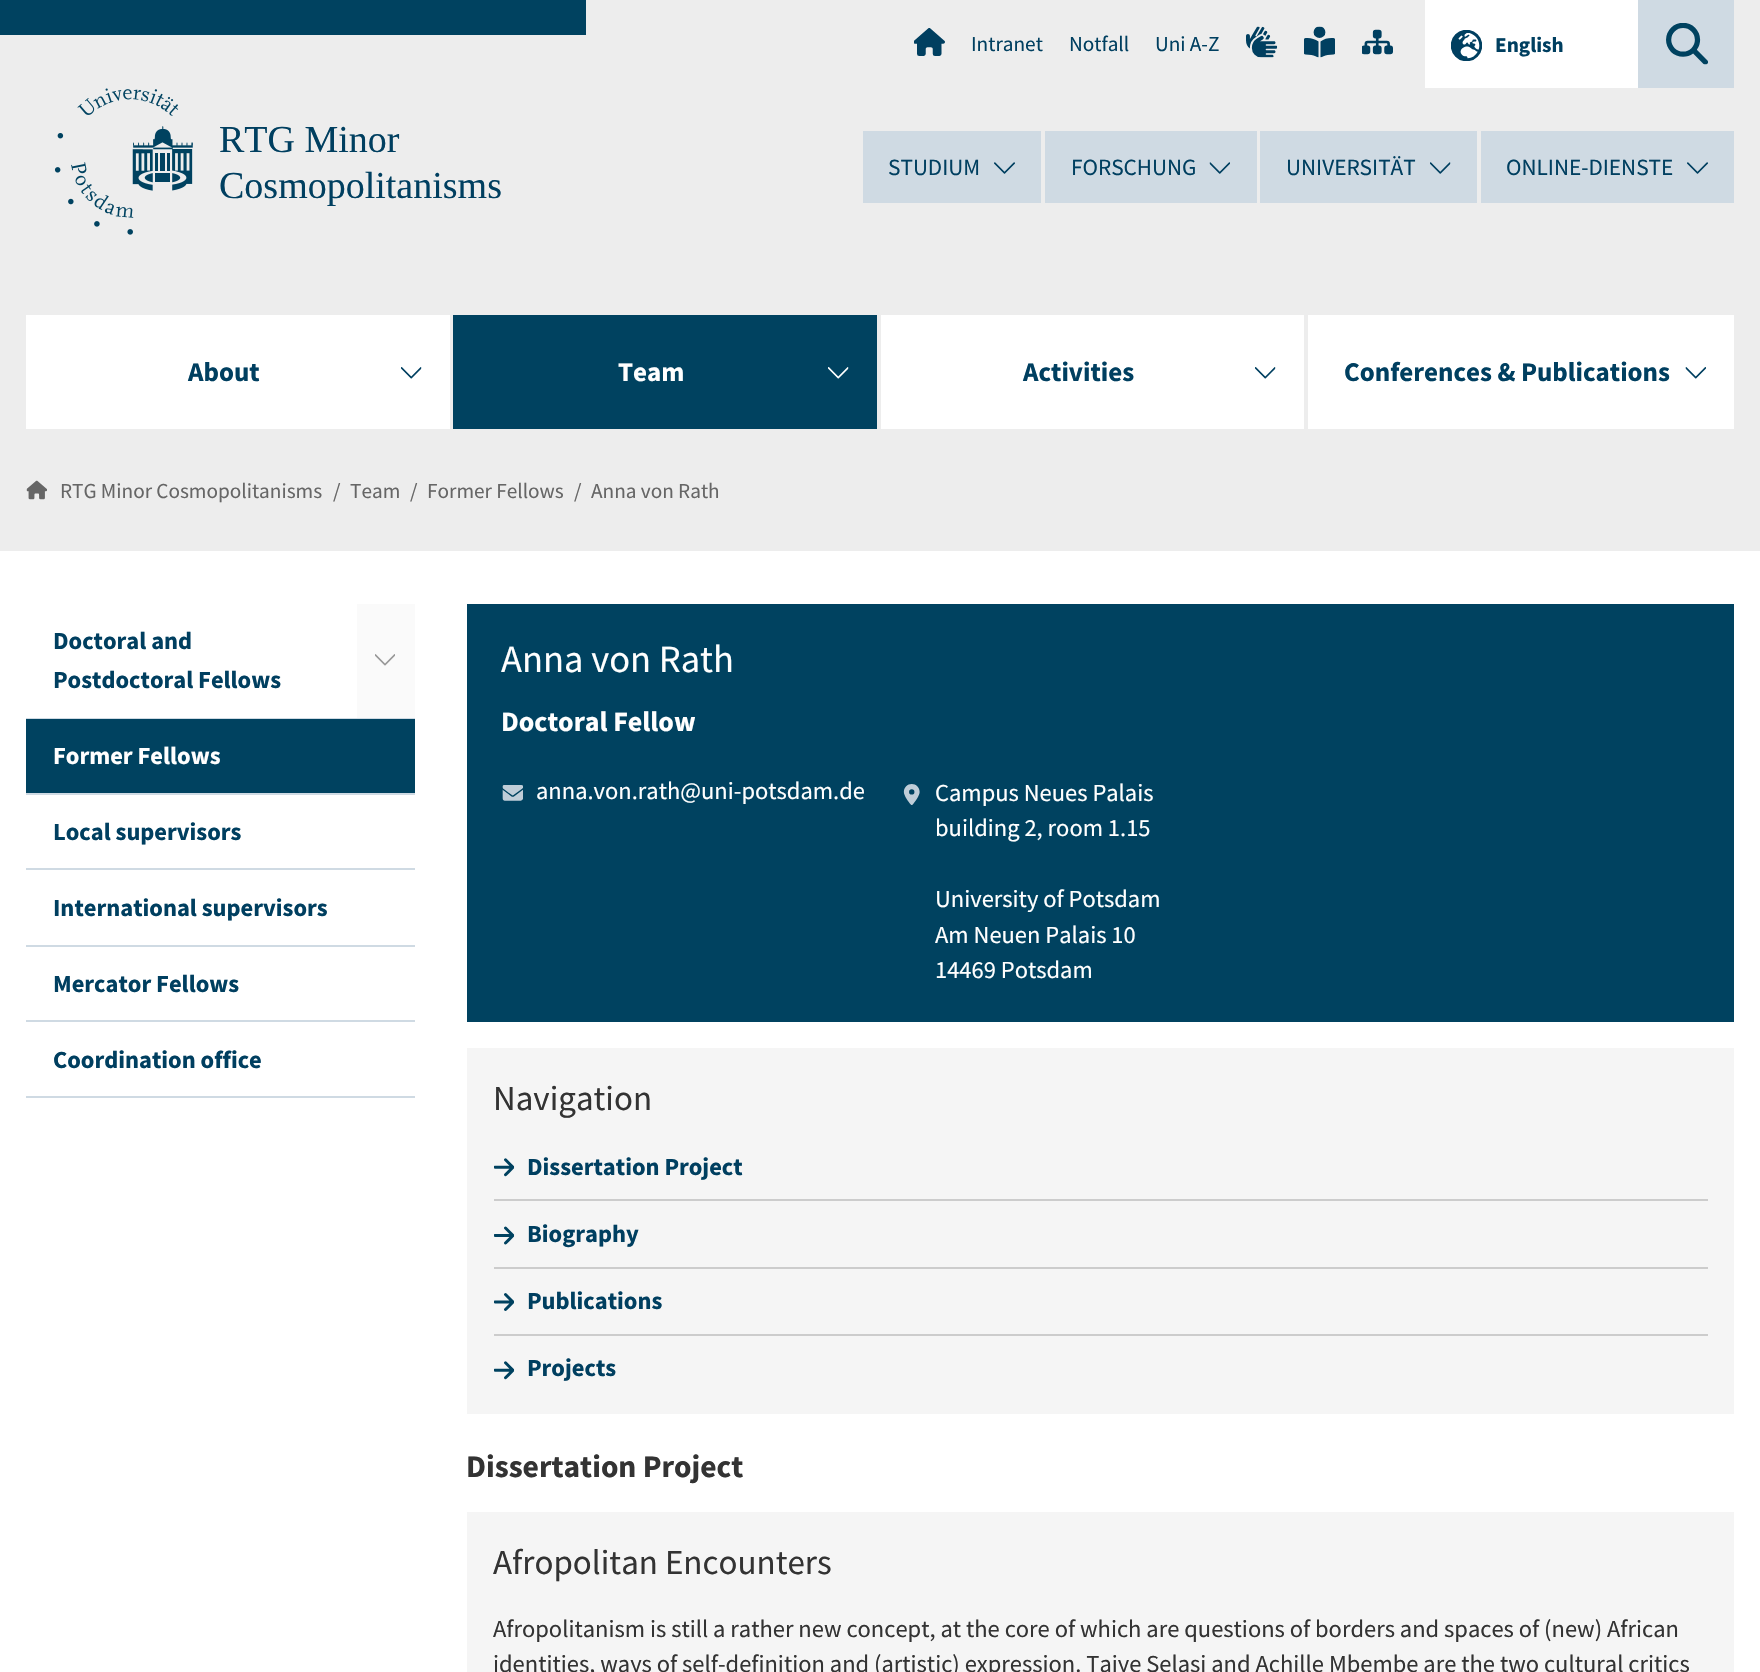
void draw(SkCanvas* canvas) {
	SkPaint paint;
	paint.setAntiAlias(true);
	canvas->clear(0xffffffff);
	paint.setColor(0xffededed);
	canvas->drawRect(SkRect::MakeXYWH(0, 0, 1760, 551), paint);
	paint.setColor(0xff004260);
	canvas->drawRect(SkRect::MakeXYWH(0, 0, 586, 35), paint);
	canvas->drawImageRect(SkImages::DeferredFromEncodedData(SkData::MakeFromFileName("img1.png")), SkRect::MakeXYWH(54, 88, 139, 147), SkSamplingOptions());
	SkFont f1(fontMgr->matchFamilyStyle("Liberation Serif", SkFontStyle::Normal()), 38);
	f1.setSubpixel(true);
	paint.setColor(0xff003f60);
	canvas->drawString("RTG Minor", 219, 152, f1, paint);
	canvas->drawString("Cosmopolitanisms", 219, 198, f1, paint);
	canvas->drawImageRect(SkImages::DeferredFromEncodedData(SkData::MakeFromFileName("img2.png")), SkRect::MakeXYWH(914, 28, 31, 28), SkSamplingOptions());
	SkFont f2(fontMgr->matchFamilyStyle("Source Sans Pro", SkFontStyle::Normal()), 21.25);
	f2.setSubpixel(true);
	canvas->drawString("Intranet", 971, 51, f2, paint);
	canvas->drawString("Notfall", 1069, 51, f2, paint);
	canvas->drawString("Uni A-Z", 1155, 51, f2, paint);
	canvas->drawImageRect(SkImages::DeferredFromEncodedData(SkData::MakeFromFileName("img3.png")), SkRect::MakeXYWH(1246, 26, 32, 32), SkSamplingOptions());
	canvas->drawImageRect(SkImages::DeferredFromEncodedData(SkData::MakeFromFileName("img4.png")), SkRect::MakeXYWH(1304, 26, 31, 32), SkSamplingOptions());
	canvas->drawImageRect(SkImages::DeferredFromEncodedData(SkData::MakeFromFileName("img5.png")), SkRect::MakeXYWH(1362, 29, 31, 26), SkSamplingOptions());
	paint.setColor(0xffffffff);
	canvas->drawRect(SkRect::MakeXYWH(1425, 0, 213, 88), paint);
	canvas->drawImageRect(SkImages::DeferredFromEncodedData(SkData::MakeFromFileName("img6.png")), SkRect::MakeXYWH(1451, 30, 31, 31), SkSamplingOptions());
	SkFont f3(fontMgr->matchFamilyStyle("Source Sans Pro", SkFontStyle::Bold()), 21.25);
	f3.setSubpixel(true);
	paint.setColor(0xff003f60);
	canvas->drawString("English", 1495, 52, f3, paint);
	paint.setColor(0xffcfdae3);
	canvas->drawRect(SkRect::MakeXYWH(1638, 0, 96, 88), paint);
	canvas->drawImageRect(SkImages::DeferredFromEncodedData(SkData::MakeFromFileName("img7.png")), SkRect::MakeXYWH(1666, 23, 42, 42), SkSamplingOptions());
	canvas->drawRect(SkRect::MakeXYWH(863, 131, 178, 72), paint);
	SkFont f4(fontMgr->matchFamilyStyle("Source Sans Pro", SkFontStyle::Normal()), 23.25);
	f4.setSubpixel(true);
	paint.setColor(0xff003f60);
	canvas->drawString("STUDIUM", 888, 175, f4, paint);
	canvas->drawImageRect(SkImages::DeferredFromEncodedData(SkData::MakeFromFileName("img8.png")), SkRect::MakeXYWH(994, 162, 21, 12), SkSamplingOptions());
	paint.setColor(0xffcfdae3);
	canvas->drawRect(SkRect::MakeXYWH(1045, 131, 212, 72), paint);
	paint.setColor(0xff003f60);
	canvas->drawString("FORSCHUNG", 1071, 175, f4, paint);
	canvas->drawImageRect(SkImages::DeferredFromEncodedData(SkData::MakeFromFileName("img9.png")), SkRect::MakeXYWH(1209, 162, 21, 12), SkSamplingOptions());
	paint.setColor(0xffcfdae3);
	canvas->drawRect(SkRect::MakeXYWH(1260, 131, 217, 72), paint);
	paint.setColor(0xff003f60);
	canvas->drawString("UNIVERSITÄT", 1286, 175, f4, paint);
	canvas->drawImageRect(SkImages::DeferredFromEncodedData(SkData::MakeFromFileName("img10.png")), SkRect::MakeXYWH(1430, 162, 21, 12), SkSamplingOptions());
	paint.setColor(0xffcfdae3);
	canvas->drawRect(SkRect::MakeXYWH(1481, 131, 253, 72), paint);
	paint.setColor(0xff003f60);
	canvas->drawString("ONLINE-DIENSTE", 1506, 175, f4, paint);
	canvas->drawImageRect(SkImages::DeferredFromEncodedData(SkData::MakeFromFileName("img8.png")), SkRect::MakeXYWH(1687, 162, 21, 12), SkSamplingOptions());
	paint.setColor(0xffffffff);
	canvas->drawRect(SkRect::MakeXYWH(26, 315, 1708, 114), paint);
	paint.setColor(0xffededed);
	canvas->drawRect(SkRect::MakeXYWH(450, 315, 3, 114), paint);
	SkFont f5(fontMgr->matchFamilyStyle("Source Sans Pro", SkFontStyle::Bold()), 27);
	f5.setSubpixel(true);
	paint.setColor(0xff003f60);
	canvas->drawString("About", 188, 381, f5, paint);
	canvas->drawImageRect(SkImages::DeferredFromEncodedData(SkData::MakeFromFileName("img11.png")), SkRect::MakeXYWH(401, 367, 21, 12), SkSamplingOptions());
	paint.setColor(0xff004260);
	canvas->drawRect(SkRect::MakeXYWH(453, 315, 424, 114), paint);
	paint.setColor(0xffededed);
	canvas->drawRect(SkRect::MakeXYWH(877, 315, 4, 114), paint);
	paint.setColor(0xffffffff);
	canvas->drawString("Team", 618, 381, f5, paint);
	canvas->drawImageRect(SkImages::DeferredFromEncodedData(SkData::MakeFromFileName("img12.png")), SkRect::MakeXYWH(828, 367, 21, 12), SkSamplingOptions());
	paint.setColor(0xffededed);
	canvas->drawRect(SkRect::MakeXYWH(1304, 315, 4, 114), paint);
	paint.setColor(0xff003f60);
	canvas->drawString("Activities", 1023, 381, f5, paint);
	canvas->drawImageRect(SkImages::DeferredFromEncodedData(SkData::MakeFromFileName("img13.png")), SkRect::MakeXYWH(1255, 367, 21, 12), SkSamplingOptions());
	canvas->drawString("Conferences & Publications", 1344, 381, f5, paint);
	canvas->drawImageRect(SkImages::DeferredFromEncodedData(SkData::MakeFromFileName("img14.png")), SkRect::MakeXYWH(1685, 367, 21, 12), SkSamplingOptions());
	canvas->drawImageRect(SkImages::DeferredFromEncodedData(SkData::MakeFromFileName("img15.png")), SkRect::MakeXYWH(26, 480, 21, 20), SkSamplingOptions());
	paint.setColor(0xff666666);
	canvas->drawString("RTG Minor Cosmopolitanisms", 60, 498, f2, paint);
	canvas->drawString("/", 333, 498, f2, paint);
	canvas->drawString("Team", 350, 498, f2, paint);
	canvas->drawString("/", 410, 498, f2, paint);
	canvas->drawString("Former Fellows", 427, 498, f2, paint);
	canvas->drawString("/", 574, 498, f2, paint);
	canvas->drawString("Anna von Rath", 591, 498, f2, paint);
	paint.setColor(0xffcfdae3);
	canvas->drawRect(SkRect::MakeXYWH(26, 718, 389, 1), paint);
	paint.setColor(0xfffafafa);
	canvas->drawRect(SkRect::MakeXYWH(357, 604, 58, 114), paint);
	SkFont f6(fontMgr->matchFamilyStyle("Source Sans Pro", SkFontStyle::Bold()), 24.5);
	f6.setSubpixel(true);
	paint.setColor(0xff003f60);
	canvas->drawString("Doctoral and", 53, 649, f6, paint);
	canvas->drawString("Postdoctoral Fellows", 53, 688, f6, paint);
	canvas->drawImageRect(SkImages::DeferredFromEncodedData(SkData::MakeFromFileName("img16.png")), SkRect::MakeXYWH(375, 654, 20, 12), SkSamplingOptions());
	paint.setColor(0xffcfdae3);
	canvas->drawRect(SkRect::MakeXYWH(26, 793, 389, 2), paint);
	paint.setColor(0xff004260);
	canvas->drawRect(SkRect::MakeXYWH(26, 719, 389, 74), paint);
	paint.setColor(0xffffffff);
	canvas->drawString("Former Fellows", 53, 764, f6, paint);
	paint.setColor(0xffcfdae3);
	canvas->drawRect(SkRect::MakeXYWH(26, 868, 389, 2), paint);
	paint.setColor(0xff003f60);
	canvas->drawString("Local supervisors", 53, 840, f6, paint);
	paint.setColor(0xffcfdae3);
	canvas->drawRect(SkRect::MakeXYWH(26, 945, 389, 2), paint);
	paint.setColor(0xff003f60);
	canvas->drawString("International supervisors", 53, 916, f6, paint);
	paint.setColor(0xffcfdae3);
	canvas->drawRect(SkRect::MakeXYWH(26, 1020, 389, 2), paint);
	paint.setColor(0xff003f60);
	canvas->drawString("Mercator Fellows", 53, 992, f6, paint);
	paint.setColor(0xffcfdae3);
	canvas->drawRect(SkRect::MakeXYWH(26, 1096, 389, 2), paint);
	paint.setColor(0xff003f60);
	canvas->drawString("Coordination office", 53, 1068, f6, paint);
	paint.setColor(0xff004260);
	canvas->drawRect(SkRect::MakeXYWH(467, 604, 1267, 418), paint);
	SkFont f7(fontMgr->matchFamilyStyle("Source Sans Pro", SkFontStyle::Normal()), 38.5);
	f7.setSubpixel(true);
	paint.setColor(0xffffffff);
	canvas->drawString("Anna von Rath", 501, 672, f7, paint);
	SkFont f8(fontMgr->matchFamilyStyle("Source Sans Pro", SkFontStyle::Bold()), 28);
	f8.setSubpixel(true);
	canvas->drawString("Doctoral Fellow", 501, 731, f8, paint);
	canvas->drawImageRect(SkImages::DeferredFromEncodedData(SkData::MakeFromFileName("img17.png")), SkRect::MakeXYWH(502, 785, 21, 16), SkSamplingOptions());
	SkFont f9(fontMgr->matchFamilyStyle("Source Sans Pro", SkFontStyle::Normal()), 24.5);
	f9.setSubpixel(true);
	canvas->drawString("anna.von.rath@uni-potsdam.de", 536, 799, f9, paint);
	canvas->drawImageRect(SkImages::DeferredFromEncodedData(SkData::MakeFromFileName("img18.png")), SkRect::MakeXYWH(903, 784, 17, 21), SkSamplingOptions());
	canvas->drawString("Campus Neues Palais", 935, 801, f9, paint);
	canvas->drawString("building 2, room 1.15", 935, 836, f9, paint);
	canvas->drawString("University of Potsdam", 935, 907, f9, paint);
	canvas->drawString("Am Neuen Palais 10", 935, 943, f9, paint);
	canvas->drawString("14469 Potsdam", 935, 978, f9, paint);
	paint.setColor(0xfff5f5f5);
	canvas->drawRect(SkRect::MakeXYWH(467, 1048, 1267, 366), paint);
	SkFont f10(fontMgr->matchFamilyStyle("Source Sans Pro", SkFontStyle::Normal()), 35);
	f10.setSubpixel(true);
	paint.setColor(0xff333333);
	canvas->drawString("Navigation", 493, 1110, f10, paint);
	canvas->drawImageRect(SkImages::DeferredFromEncodedData(SkData::MakeFromFileName("img19.png")), SkRect::MakeXYWH(494, 1158, 21, 19), SkSamplingOptions());
	paint.setColor(0xff003f60);
	canvas->drawString("Dissertation Project", 527, 1175, f6, paint);
	paint.setColor(0xffcccccc);
	canvas->drawRect(SkRect::MakeXYWH(494, 1199, 1214, 2), paint);
	canvas->drawImageRect(SkImages::DeferredFromEncodedData(SkData::MakeFromFileName("img20.png")), SkRect::MakeXYWH(494, 1226, 21, 19), SkSamplingOptions());
	paint.setColor(0xff003f60);
	canvas->drawString("Biography", 527, 1242, f6, paint);
	paint.setColor(0xffcccccc);
	canvas->drawRect(SkRect::MakeXYWH(494, 1267, 1214, 2), paint);
	canvas->drawImageRect(SkImages::DeferredFromEncodedData(SkData::MakeFromFileName("img21.png")), SkRect::MakeXYWH(494, 1293, 20, 18), SkSamplingOptions());
	paint.setColor(0xff003f60);
	canvas->drawString("Publications", 527, 1309, f6, paint);
	paint.setColor(0xffcccccc);
	canvas->drawRect(SkRect::MakeXYWH(494, 1334, 1214, 2), paint);
	canvas->drawImageRect(SkImages::DeferredFromEncodedData(SkData::MakeFromFileName("img19.png")), SkRect::MakeXYWH(494, 1361, 21, 19), SkSamplingOptions());
	paint.setColor(0xff003f60);
	canvas->drawString("Projects", 527, 1376, f6, paint);
	SkFont f11(fontMgr->matchFamilyStyle("Source Sans Pro", SkFontStyle::Bold()), 31.5);
	f11.setSubpixel(true);
	paint.setColor(0xff333333);
	canvas->drawString("Dissertation Project", 466, 1477, f11, paint);
	paint.setColor(0xfff5f5f5);
	canvas->drawRect(SkRect::MakeXYWH(467, 1512, 1267, 160), paint);
	paint.setColor(0xff333333);
	canvas->drawString("Afropolitan Encounters", 493, 1574, f10, paint);
	canvas->drawString("Afropolitanism is still a rather new concept, at the core of which are questions of borders and spaces of (new) African", 493, 1637, f9, paint);
	canvas->drawString("identities, ways of self-definition and (artistic) expression. Taiye Selasi and Achille Mbembe are the two cultural critics", 493, 1672, f9, paint);
}
